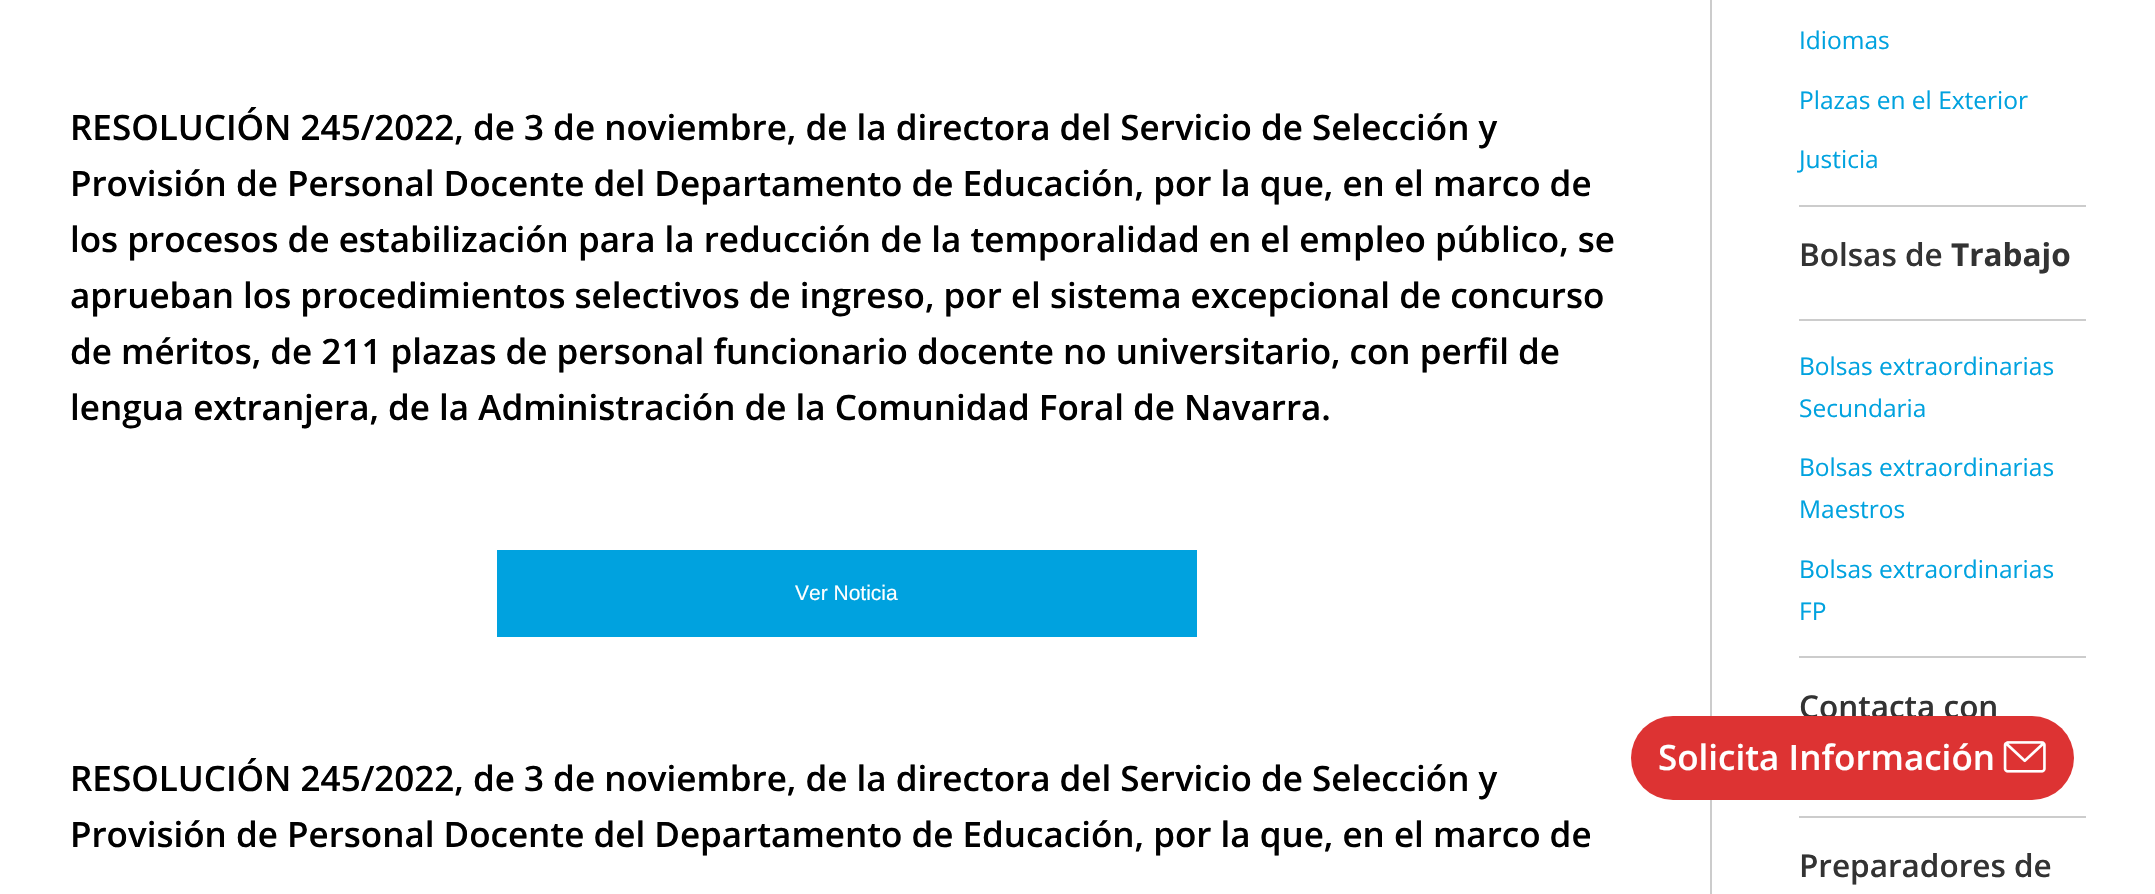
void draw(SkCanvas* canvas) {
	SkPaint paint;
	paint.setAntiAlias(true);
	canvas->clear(0xffffffff);
	SkFont f1(fontMgr->matchFamilyStyle("Open Sans", SkFontStyle(600, SkFontStyle::kNormal_Width, SkFontStyle::kUpright_Slant)), 35);
	f1.setSubpixel(true);
	paint.setColor(0xff000000);
	canvas->drawString("RESOLUCIÓN 245/2022, de 3 de noviembre, de la directora del Servicio de Selección y", 70, 140, f1, paint);
	canvas->drawString("Provisión de Personal Docente del Departamento de Educación, por la que, en el marco de", 70, 196, f1, paint);
	canvas->drawString("los procesos de estabilización para la reducción de la temporalidad en el empleo público, se", 70, 252, f1, paint);
	canvas->drawString("aprueban los procedimientos selectivos de ingreso, por el sistema excepcional de concurso", 70, 308, f1, paint);
	canvas->drawString("de méritos, de 211 plazas de personal funcionario docente no universitario, con perfil de", 70, 364, f1, paint);
	canvas->drawString("lengua extranjera, de la Administración de la Comunidad Foral de Navarra.", 70, 420, f1, paint);
	paint.setColor(0xff00a2df);
	canvas->drawRect(SkRect::MakeXYWH(497, 550, 700, 87), paint);
	SkFont f2(fontMgr->matchFamilyStyle("Liberation Sans", SkFontStyle::Normal()), 21);
	f2.setSubpixel(true);
	paint.setColor(0xffffffff);
	canvas->drawString("Ver Noticia", 795, 600, f2, paint);
	paint.setColor(0xff000000);
	canvas->drawString("RESOLUCIÓN 245/2022, de 3 de noviembre, de la directora del Servicio de Selección y", 70, 791, f1, paint);
	canvas->drawString("Provisión de Personal Docente del Departamento de Educación, por la que, en el marco de", 70, 847, f1, paint);
	paint.setColor(0xffcccccc);
	canvas->drawRect(SkRect::MakeXYWH(1710, 0, 2, 894), paint);
	SkFont f3(fontMgr->matchFamilyStyle("Open Sans", SkFontStyle::Normal()), 24.5);
	f3.setSubpixel(true);
	paint.setColor(0xff00a2df);
	canvas->drawString("Idiomas", 1799, 49, f3, paint);
	canvas->drawString("Plazas en el Exterior", 1799, 109, f3, paint);
	canvas->drawString("Justicia", 1799, 168, f3, paint);
	paint.setColor(0xffcccccc);
	canvas->drawRect(SkRect::MakeXYWH(1799, 205, 287, 2), paint);
	SkFont f4(fontMgr->matchFamilyStyle("Open Sans", SkFontStyle(600, SkFontStyle::kNormal_Width, SkFontStyle::kUpright_Slant)), 31.5);
	f4.setSubpixel(true);
	paint.setColor(0xff333333);
	canvas->drawString("Bolsas de", 1799, 266, f4, paint);
	SkFont f5(fontMgr->matchFamilyStyle("Open Sans", SkFontStyle::Bold()), 31.5);
	f5.setSubpixel(true);
	canvas->drawString("Trabajo", 1951, 266, f5, paint);
	paint.setColor(0xffcccccc);
	canvas->drawRect(SkRect::MakeXYWH(1799, 319, 287, 2), paint);
	paint.setColor(0xff00a2df);
	canvas->drawString("Bolsas extraordinarias", 1799, 375, f3, paint);
	canvas->drawString("Secundaria", 1799, 417, f3, paint);
	canvas->drawString("Bolsas extraordinarias", 1799, 476, f3, paint);
	canvas->drawString("Maestros", 1799, 518, f3, paint);
	canvas->drawString("Bolsas extraordinarias", 1799, 578, f3, paint);
	canvas->drawString("FP", 1799, 620, f3, paint);
	paint.setColor(0xffcccccc);
	canvas->drawRect(SkRect::MakeXYWH(1799, 656, 287, 2), paint);
	paint.setColor(0xff333333);
	canvas->drawString("Contacta con", 1799, 718, f4, paint);
	paint.setColor(0xffcccccc);
	canvas->drawRect(SkRect::MakeXYWH(1799, 816, 287, 2), paint);
	paint.setColor(0xff333333);
	canvas->drawString("Preparadores de", 1799, 877, f4, paint);
	paint.setColor(0xffdd3333);
	canvas->drawRoundRect(SkRect::MakeXYWH(1631, 716, 443, 84), 42, 42, paint);
	paint.setColor(0xffffffff);
	canvas->drawString("Solicita Información", 1658, 770, f1, paint);
	canvas->drawImageRect(SkImages::DeferredFromEncodedData(SkData::MakeFromFileName("img1.png")), SkRect::MakeXYWH(2003, 741, 43, 32), SkSamplingOptions());
}
